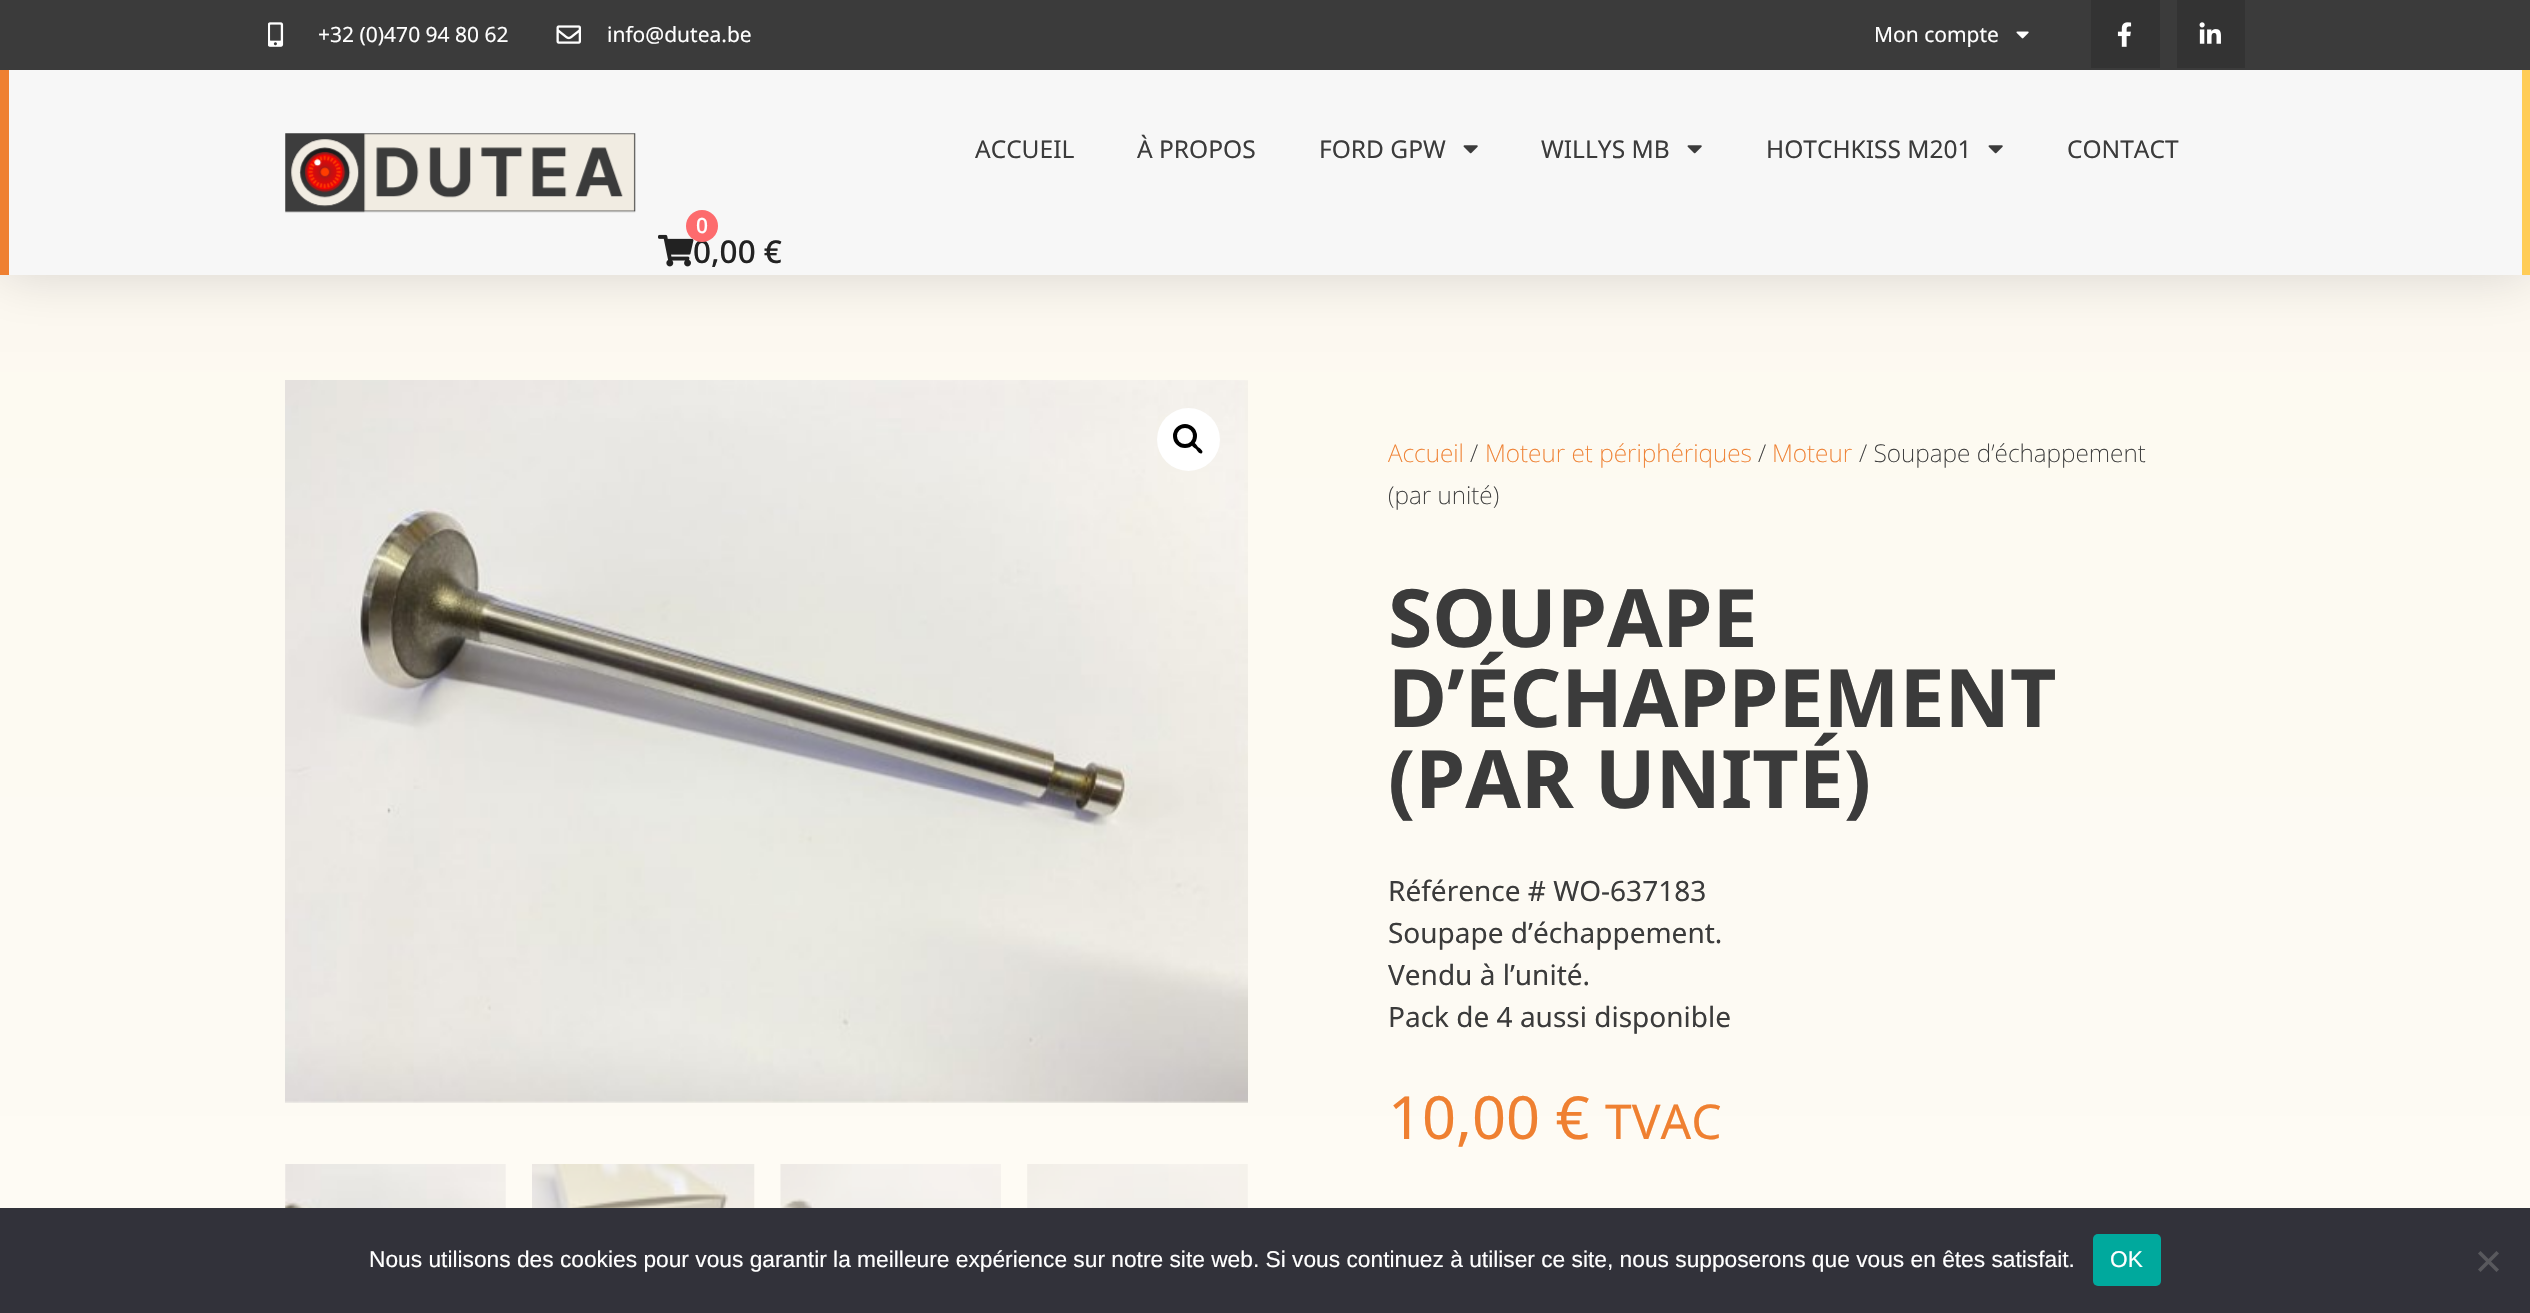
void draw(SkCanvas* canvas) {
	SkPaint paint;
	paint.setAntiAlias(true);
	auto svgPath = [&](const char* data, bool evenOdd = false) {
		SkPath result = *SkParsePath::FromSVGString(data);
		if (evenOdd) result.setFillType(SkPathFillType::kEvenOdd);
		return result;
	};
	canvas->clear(0xffffffff);
	{
		const SkColor colors[] = {0xfffdf9f0, 0xfffffffe};
		const float stops[] = {0, 1};
		const SkPoint ends[] = {{1265, 0}, {1265, 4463}};
		paint.setShader(SkGradientShader::MakeLinear(ends, colors, stops, 2, SkTileMode::kClamp));
		paint.setAlpha(255);
	}
	canvas->drawRect(SkRect::MakeXYWH(0, 275, 2530, 933), paint);
	paint.setShader(nullptr);
	paint.setColor(0x26000000);
	paint.setMaskFilter(SkMaskFilter::MakeBlur(kNormal_SkBlurStyle, 26));
	canvas->drawRect(SkRect::MakeXYWH(0, 70, 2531, 205), paint);
	paint.setMaskFilter(nullptr);
	paint.setColor(0xff3b3b3b);
	canvas->drawRect(SkRect::MakeXYWH(0, 0, 2530, 70), paint);
	canvas->drawImageRect(SkImages::DeferredFromEncodedData(SkData::MakeFromFileName("img1.png")), SkRect::MakeXYWH(268, 22, 16, 25), SkSamplingOptions());
	SkFont f1(fontMgr->matchFamilyStyle("Noto Sans", SkFontStyle::Normal()), 21);
	f1.setSubpixel(true);
	paint.setColor(0xffffffff);
	canvas->drawString("+32 (0)470 94 80 62", 318, 42, f1, paint);
	canvas->drawImageRect(SkImages::DeferredFromEncodedData(SkData::MakeFromFileName("img2.png")), SkRect::MakeXYWH(556, 25, 25, 19), SkSamplingOptions());
	canvas->drawString("info@dutea.be", 607, 42, f1, paint);
	canvas->drawString("Mon compte", 1874, 42, f1, paint);
	canvas->drawImageRect(SkImages::DeferredFromEncodedData(SkData::MakeFromFileName("img3.png")), SkRect::MakeXYWH(2016, 31, 13, 8), SkSamplingOptions());
	paint.setColor(0xff333333);
	canvas->drawRect(SkRect::MakeXYWH(2091, 0, 69, 68), paint);
	canvas->drawImageRect(SkImages::DeferredFromEncodedData(SkData::MakeFromFileName("img4.png")), SkRect::MakeXYWH(2117, 22, 15, 25), SkSamplingOptions());
	canvas->drawRect(SkRect::MakeXYWH(2177, 0, 68, 68), paint);
	canvas->drawImageRect(SkImages::DeferredFromEncodedData(SkData::MakeFromFileName("img5.png")), SkRect::MakeXYWH(2199, 22, 22, 22), SkSamplingOptions());
	paint.setColor(0xfff7f7f7);
	canvas->drawRect(SkRect::MakeXYWH(9, 70, 2513, 205), paint);
	paint.setColor(0xffffcc56);
	canvas->drawRect(SkRect::MakeXYWH(2522, 70, 8, 205), paint);
	paint.setColor(0xffef8031);
	canvas->drawRect(SkRect::MakeXYWH(0, 70, 9, 205), paint);
	canvas->drawImageRect(SkImages::DeferredFromEncodedData(SkData::MakeFromFileName("img6.png")), SkRect::MakeXYWH(285, 133, 351, 80), SkSamplingOptions());
	SkFont f2(fontMgr->matchFamilyStyle("Noto Sans", SkFontStyle::Normal()), 24.5);
	f2.setSubpixel(true);
	paint.setColor(0xff3b3b3b);
	canvas->drawString("ACCUEIL", 975, 158, f2, paint);
	canvas->drawString("À PROPOS", 1137, 158, f2, paint);
	canvas->drawString("FORD GPW", 1319, 158, f2, paint);
	canvas->drawImageRect(SkImages::DeferredFromEncodedData(SkData::MakeFromFileName("img7.png")), SkRect::MakeXYWH(1463, 145, 15, 9), SkSamplingOptions());
	canvas->drawString("WILLYS MB", 1541, 158, f2, paint);
	canvas->drawImageRect(SkImages::DeferredFromEncodedData(SkData::MakeFromFileName("img7.png")), SkRect::MakeXYWH(1687, 145, 15, 9), SkSamplingOptions());
	canvas->drawString("HOTCHKISS M201", 1766, 158, f2, paint);
	canvas->drawImageRect(SkImages::DeferredFromEncodedData(SkData::MakeFromFileName("img7.png")), SkRect::MakeXYWH(1988, 145, 15, 9), SkSamplingOptions());
	canvas->drawString("CONTACT", 2067, 158, f2, paint);
	canvas->drawImageRect(SkImages::DeferredFromEncodedData(SkData::MakeFromFileName("img8.png")), SkRect::MakeXYWH(658, 234, 36, 33), SkSamplingOptions());
	SkFont f3(fontMgr->matchFamilyStyle("Noto Sans", SkFontStyle(500, SkFontStyle::kNormal_Width, SkFontStyle::kUpright_Slant)), 31.5);
	f3.setSubpixel(true);
	paint.setColor(0xff222222);
	canvas->drawString("0,00 €", 693, 263, f3, paint);
	paint.setColor(0xfffd6b6d);
	canvas->drawCircle(702, 226, 16, paint);
	SkFont f4(fontMgr->matchFamilyStyle("Noto Sans", SkFontStyle(500, SkFontStyle::kNormal_Width, SkFontStyle::kUpright_Slant)), 21);
	f4.setSubpixel(true);
	paint.setColor(0xffffffff);
	canvas->drawString("0", 696, 233, f4, paint);
	canvas->drawImageRect(SkImages::DeferredFromEncodedData(SkData::MakeFromFileName("img9.png")), SkRect::MakeXYWH(285, 380, 963, 723), SkSamplingOptions());
	canvas->drawCircle(1188.5, 439.5, 31.5, paint);
	paint.setStroke(true);
	paint.setStrokeWidth(4);
	paint.setColor(0xff000000);
	canvas->drawCircle(1185, 436, 10, paint);
	paint.setStroke(false);
	canvas->drawPath(svgPath("M1192 443C1194 441 1197 445.5 1198 447C1199.5 448 1204 451 1202 453C1200 455 1197 450.5 1196 449C1194.5 448 1190 445 1192 443Z"), paint);
	canvas->drawImageRect(SkImages::DeferredFromEncodedData(SkData::MakeFromFileName("img10.png")), SkRect::MakeXYWH(285, 1164, 221, 44), SkSamplingOptions());
	canvas->drawImageRect(SkImages::DeferredFromEncodedData(SkData::MakeFromFileName("img11.png")), SkRect::MakeXYWH(532, 1164, 223, 44), SkSamplingOptions());
	canvas->drawImageRect(SkImages::DeferredFromEncodedData(SkData::MakeFromFileName("img12.png")), SkRect::MakeXYWH(780, 1164, 221, 44), SkSamplingOptions());
	canvas->drawImageRect(SkImages::DeferredFromEncodedData(SkData::MakeFromFileName("img13.png")), SkRect::MakeXYWH(1027, 1164, 221, 44), SkSamplingOptions());
	SkFont f5(fontMgr->matchFamilyStyle("Noto Sans", SkFontStyle(200, SkFontStyle::kNormal_Width, SkFontStyle::kUpright_Slant)), 24.5);
	f5.setSubpixel(true);
	paint.setColor(0xffef8031);
	canvas->drawString("Accueil", 1388, 462, f5, paint);
	paint.setColor(0xff3b3b3b);
	canvas->drawString("/", 1470, 462, f5, paint);
	paint.setColor(0xffef8031);
	canvas->drawString("Moteur et périphériques", 1485, 462, f5, paint);
	paint.setColor(0xff3b3b3b);
	canvas->drawString("/", 1758, 462, f5, paint);
	paint.setColor(0xffef8031);
	canvas->drawString("Moteur", 1772, 462, f5, paint);
	paint.setColor(0xff3b3b3b);
	canvas->drawString("/ Soupape d’échappement", 1859, 462, f5, paint);
	canvas->drawString("(par unité)", 1388, 504, f5, paint);
	SkFont f6(fontMgr->matchFamilyStyle("Noto Sans", SkFontStyle::Bold()), 80.5);
	f6.setSubpixel(true);
	canvas->drawString("SOUPAPE", 1388, 647, f6, paint);
	canvas->drawString("D’ÉCHAPPEMENT", 1388, 727, f6, paint);
	canvas->drawString("(PAR UNITÉ)", 1388, 808, f6, paint);
	SkFont f7(fontMgr->matchFamilyStyle("Noto Sans", SkFontStyle::Normal()), 28);
	f7.setSubpixel(true);
	canvas->drawString("Référence # WO-637183", 1388, 901, f7, paint);
	canvas->drawString("Soupape d’échappement.", 1388, 943, f7, paint);
	canvas->drawString("Vendu à l’unité.", 1388, 985, f7, paint);
	canvas->drawString("Pack de 4 aussi disponible", 1388, 1027, f7, paint);
	SkFont f8(fontMgr->matchFamilyStyle("Noto Sans", SkFontStyle::Normal()), 59.5);
	f8.setSubpixel(true);
	paint.setColor(0xffef8031);
	canvas->drawString("10,00 €", 1388, 1139, f8, paint);
	SkFont f9(fontMgr->matchFamilyStyle("Noto Sans", SkFontStyle::Normal()), 48);
	f9.setSubpixel(true);
	canvas->drawString("TVAC", 1605, 1139, f9, paint);
	paint.setColor(0xff32323a);
	canvas->drawRect(SkRect::MakeXYWH(0, 1208, 2530, 105), paint);
	SkFont f10(fontMgr->matchFamilyStyle("Liberation Sans", SkFontStyle::Normal()), 22.75);
	f10.setSubpixel(true);
	paint.setColor(0xffffffff);
	canvas->drawString("Nous utilisons des cookies pour vous garantir la meilleure expérience sur notre site web. Si vous continuez à utiliser ce site, nous supposerons que vous en êtes satisfait.", 369, 1267, f10, paint);
	paint.setColor(0xff00a99d);
	canvas->drawRoundRect(SkRect::MakeXYWH(2093, 1234, 68, 52), 5, 5, paint);
	paint.setColor(0xffffffff);
	canvas->drawString("OK", 2110, 1267, f10, paint);
	paint.setColor(0xff59595d);
	canvas->drawPath(svgPath("M2496.5 1251L2499 1253.5L2480.5 1272L2478 1269.5Z"), paint);
	canvas->drawPath(svgPath("M2478 1253.5L2480.5 1251L2499 1269.5L2496.5 1272Z"), paint);
}
